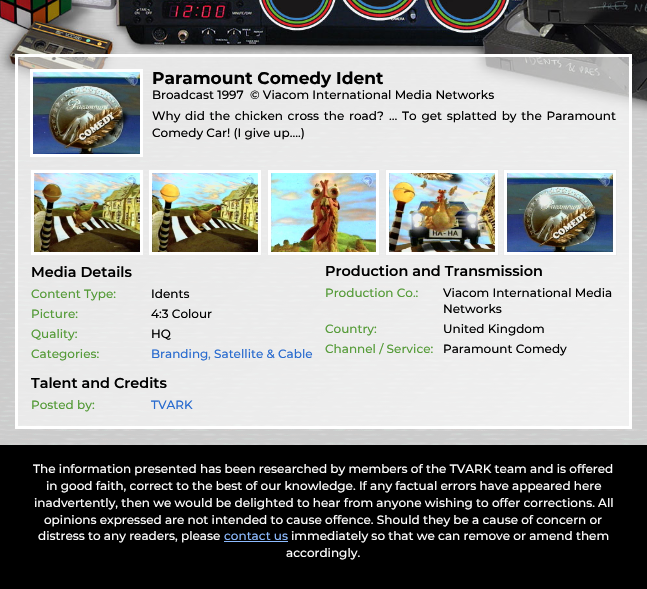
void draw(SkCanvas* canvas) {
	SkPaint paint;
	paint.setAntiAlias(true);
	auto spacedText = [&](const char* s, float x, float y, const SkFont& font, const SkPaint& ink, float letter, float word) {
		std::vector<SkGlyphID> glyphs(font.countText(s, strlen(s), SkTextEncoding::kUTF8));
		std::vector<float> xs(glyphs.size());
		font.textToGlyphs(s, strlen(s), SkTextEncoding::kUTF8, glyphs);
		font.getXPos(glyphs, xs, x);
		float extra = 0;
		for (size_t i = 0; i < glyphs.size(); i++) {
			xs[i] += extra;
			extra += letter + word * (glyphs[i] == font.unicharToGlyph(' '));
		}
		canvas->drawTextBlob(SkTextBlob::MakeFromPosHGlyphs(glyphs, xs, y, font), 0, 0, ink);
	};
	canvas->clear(0xffffffff);
	canvas->drawImageRect(SkImages::DeferredFromEncodedData(SkData::MakeFromFileName("img1.png")), SkRect::MakeXYWH(0, 116, 647, 329), SkSamplingOptions());
	paint.setColor(0xccffffff);
	canvas->drawRect(SkRect::MakeXYWH(0, 116, 647, 329), paint);
	canvas->drawImageRect(SkImages::DeferredFromEncodedData(SkData::MakeFromFileName("img2.png")), SkRect::MakeXYWH(0, 0, 647, 116), SkSamplingOptions());
	{
		const SkColor colors[] = {0x80ffffff, 0xb3ffffff};
		const float stops[] = {0, 1};
		const SkPoint ends[] = {{78, -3.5}, {569, 487}};
		paint.setShader(SkGradientShader::MakeLinear(ends, colors, stops, 2, SkTileMode::kClamp));
		paint.setAlpha(255);
	}
	canvas->drawRect(SkRect::MakeXYWH(18, 57, 611, 369), paint);
	paint.setStroke(true);
	paint.setStrokeWidth(3);
	paint.setShader(nullptr);
	paint.setColor(0xffffffff);
	canvas->drawRect(SkRect::MakeXYWH(16.5, 55.5, 614, 372), paint);
	canvas->drawImageRect(SkImages::DeferredFromEncodedData(SkData::MakeFromFileName("img3.png")), SkRect::MakeXYWH(33, 72, 107, 82), SkSamplingOptions());
	canvas->drawRect(SkRect::MakeXYWH(31.5, 70.5, 110, 85), paint);
	SkFont f1(fontMgr->matchFamilyStyle("Montserrat", SkFontStyle::Bold()), 17);
	f1.setSubpixel(true);
	paint.setStroke(false);
	paint.setColor(0xff000000);
	canvas->drawString("Paramount Comedy Ident", 152, 84, f1, paint);
	SkFont f2(fontMgr->matchFamilyStyle("Montserrat", SkFontStyle(500, SkFontStyle::kNormal_Width, SkFontStyle::kUpright_Slant)), 12);
	f2.setSubpixel(true);
	canvas->drawString("Broadcast 1997", 152, 99, f2, paint);
	canvas->drawString("© Viacom International Media Networks", 250, 99, f2, paint);
	spacedText("Why did the chicken cross the road?", 152, 120, f2, paint, 0, 1.5);
	spacedText("… To get splatted by the Paramount", 389, 120, f2, paint, 0, 1.5);
	canvas->drawString("Comedy Car! (I give up….)", 152, 137, f2, paint);
	paint.setColor(0xffffffff);
	canvas->drawRect(SkRect::MakeXYWH(30.5, 169.5, 113, 86), paint);
	paint.setStroke(true);
	paint.setStrokeWidth(1);
	paint.setColor(0xffeaeaea);
	canvas->drawRect(SkRect::MakeXYWH(30.5, 169.5, 113, 86), paint);
	canvas->drawImageRect(SkImages::DeferredFromEncodedData(SkData::MakeFromFileName("img4.png")), SkRect::MakeXYWH(34, 173, 106, 79), SkSamplingOptions());
	paint.setStroke(false);
	paint.setColor(0xffffffff);
	canvas->drawRect(SkRect::MakeXYWH(148.5, 169.5, 113, 86), paint);
	paint.setStroke(true);
	paint.setColor(0xffeaeaea);
	canvas->drawRect(SkRect::MakeXYWH(148.5, 169.5, 113, 86), paint);
	canvas->drawImageRect(SkImages::DeferredFromEncodedData(SkData::MakeFromFileName("img5.png")), SkRect::MakeXYWH(152, 173, 106, 79), SkSamplingOptions());
	paint.setStroke(false);
	paint.setColor(0xffffffff);
	canvas->drawRect(SkRect::MakeXYWH(267.5, 169.5, 112, 86), paint);
	paint.setStroke(true);
	paint.setColor(0xffeaeaea);
	canvas->drawRect(SkRect::MakeXYWH(267.5, 169.5, 112, 86), paint);
	canvas->drawImageRect(SkImages::DeferredFromEncodedData(SkData::MakeFromFileName("img6.png")), SkRect::MakeXYWH(271, 173, 105, 79), SkSamplingOptions());
	paint.setStroke(false);
	paint.setColor(0xffffffff);
	canvas->drawRect(SkRect::MakeXYWH(385.5, 169.5, 113, 86), paint);
	paint.setStroke(true);
	paint.setColor(0xffeaeaea);
	canvas->drawRect(SkRect::MakeXYWH(385.5, 169.5, 113, 86), paint);
	canvas->drawImageRect(SkImages::DeferredFromEncodedData(SkData::MakeFromFileName("img7.png")), SkRect::MakeXYWH(389, 173, 106, 79), SkSamplingOptions());
	paint.setStroke(false);
	paint.setColor(0xffffffff);
	canvas->drawRect(SkRect::MakeXYWH(503.5, 169.5, 113, 86), paint);
	paint.setStroke(true);
	paint.setColor(0xffeaeaea);
	canvas->drawRect(SkRect::MakeXYWH(503.5, 169.5, 113, 86), paint);
	canvas->drawImageRect(SkImages::DeferredFromEncodedData(SkData::MakeFromFileName("img8.png")), SkRect::MakeXYWH(507, 173, 106, 79), SkSamplingOptions());
	SkFont f3(fontMgr->matchFamilyStyle("Montserrat", SkFontStyle(600, SkFontStyle::kNormal_Width, SkFontStyle::kUpright_Slant)), 14.4);
	f3.setSubpixel(true);
	paint.setStroke(false);
	paint.setColor(0xff000000);
	canvas->drawString("Media Details", 31, 277, f3, paint);
	paint.setColor(0xff559b38);
	canvas->drawString("Content Type:", 31, 298, f2, paint);
	paint.setColor(0xff000000);
	canvas->drawString("Idents", 151, 298, f2, paint);
	paint.setColor(0xff559b38);
	canvas->drawString("Picture:", 31, 318, f2, paint);
	paint.setColor(0xff000000);
	canvas->drawString("4:3 Colour", 151, 318, f2, paint);
	paint.setColor(0xff559b38);
	canvas->drawString("Quality:", 31, 338, f2, paint);
	paint.setColor(0xff000000);
	canvas->drawString("HQ", 151, 338, f2, paint);
	paint.setColor(0xff559b38);
	canvas->drawString("Categories:", 31, 358, f2, paint);
	paint.setColor(0xff296bcf);
	canvas->drawString("Branding", 151, 358, f2, paint);
	paint.setColor(0xff4e7eb7);
	canvas->drawString(",", 208, 358, f2, paint);
	paint.setColor(0xff296bcf);
	canvas->drawString("Satellite & Cable", 214, 358, f2, paint);
	paint.setColor(0xff000000);
	canvas->drawString("Production and Transmission", 325, 276, f3, paint);
	paint.setColor(0xff559b38);
	canvas->drawString("Production Co.:", 325, 297, f2, paint);
	paint.setColor(0xff000000);
	canvas->drawString("Viacom International Media", 443, 297, f2, paint);
	canvas->drawString("Networks", 443, 313, f2, paint);
	paint.setColor(0xff559b38);
	canvas->drawString("Country:", 325, 333, f2, paint);
	paint.setColor(0xff000000);
	canvas->drawString("United Kingdom", 443, 333, f2, paint);
	paint.setColor(0xff559b38);
	canvas->drawString("Channel / Service:", 325, 353, f2, paint);
	paint.setColor(0xff000000);
	canvas->drawString("Paramount Comedy", 443, 353, f2, paint);
	canvas->drawString("Talent and Credits", 31, 388, f3, paint);
	paint.setColor(0xff559b38);
	canvas->drawString("Posted by:", 31, 409, f2, paint);
	paint.setColor(0xff296bcf);
	canvas->drawString("TVARK", 151, 409, f2, paint);
	paint.setColor(0xff000000);
	canvas->drawRect(SkRect::MakeXYWH(0, 445, 647, 144), paint);
	paint.setColor(0xffffffff);
	canvas->drawString("The information presented has been researched by members of the TVARK team and is offered", 33, 473, f2, paint);
	canvas->drawString("in good faith, correct to the best of our knowledge. If any factual errors have appeared here", 46, 490, f2, paint);
	canvas->drawString("inadvertently, then we would be delighted to hear from anyone wishing to offer corrections. All", 34, 507, f2, paint);
	canvas->drawString("opinions expressed are not intended to cause offence. Should they be a cause of concern or", 44, 524, f2, paint);
	canvas->drawString("distress to any readers, please", 38, 540, f2, paint);
	paint.setColor(0xff8dbbff);
	canvas->drawString("contact us", 224, 540, f2, paint);
	canvas->drawRect(SkRect::MakeXYWH(224, 541, 64, 1), paint);
	paint.setColor(0xffffffff);
	canvas->drawString("immediately so that we can remove or amend them", 291, 540, f2, paint);
	canvas->drawString("accordingly.", 286, 557, f2, paint);
}
